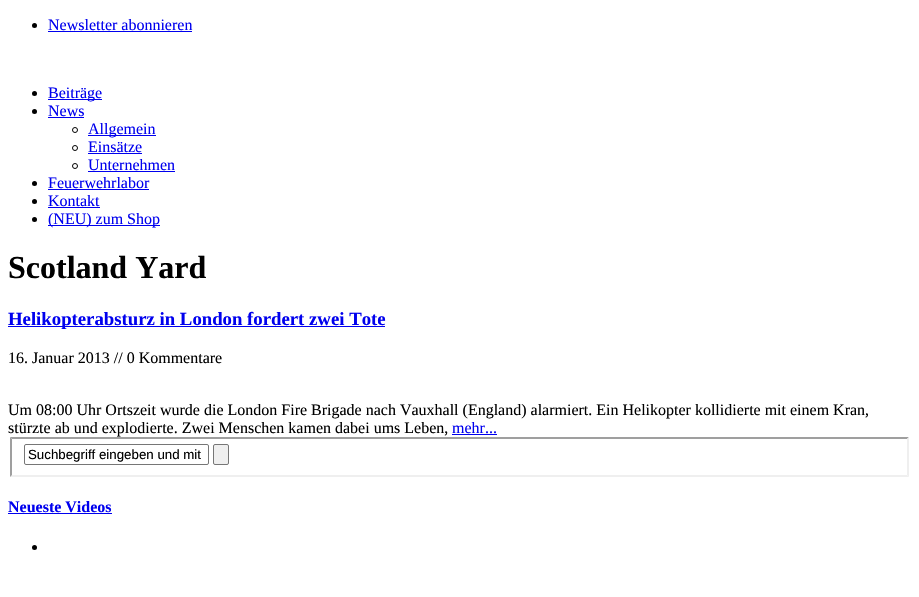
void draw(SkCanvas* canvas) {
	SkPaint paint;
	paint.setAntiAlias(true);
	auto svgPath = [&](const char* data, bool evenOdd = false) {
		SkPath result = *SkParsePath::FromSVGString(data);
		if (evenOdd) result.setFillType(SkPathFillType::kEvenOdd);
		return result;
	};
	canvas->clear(0xffffffff);
	paint.setColor(0xff000000);
	canvas->drawCircle(34.5, 25.5, 2.5, paint);
	SkFont f1(fontMgr->matchFamilyStyle("Liberation Serif", SkFontStyle::Normal()), 16);
	f1.setSubpixel(true);
	paint.setColor(0xff0000ee);
	canvas->drawString("Newsletter abonnieren", 48, 30, f1, paint);
	canvas->drawRect(SkRect::MakeXYWH(48, 31, 144, 1), paint);
	paint.setColor(0xff000000);
	canvas->drawCircle(34.5, 93.5, 2.5, paint);
	paint.setColor(0xff0000ee);
	canvas->drawRect(SkRect::MakeXYWH(48, 99, 54, 1), paint);
	canvas->drawString("Beiträge", 48, 98, f1, paint);
	paint.setColor(0xff000000);
	canvas->drawCircle(34.5, 111.5, 2.5, paint);
	paint.setColor(0xff0000ee);
	canvas->drawString("News", 48, 116, f1, paint);
	canvas->drawRect(SkRect::MakeXYWH(48, 117, 36, 1), paint);
	paint.setStroke(true);
	paint.setStrokeWidth(1);
	paint.setColor(0xff000000);
	canvas->drawCircle(75, 130, 2.5, paint);
	paint.setStroke(false);
	paint.setColor(0xff0000ee);
	canvas->drawRect(SkRect::MakeXYWH(88, 135, 68, 1), paint);
	canvas->drawString("Allgemein", 88, 134, f1, paint);
	paint.setStroke(true);
	paint.setColor(0xff000000);
	canvas->drawCircle(75, 148, 2.5, paint);
	paint.setStroke(false);
	paint.setColor(0xff0000ee);
	canvas->drawString("Einsätze", 88, 152, f1, paint);
	canvas->drawRect(SkRect::MakeXYWH(88, 153, 54, 1), paint);
	paint.setStroke(true);
	paint.setColor(0xff000000);
	canvas->drawCircle(75, 166, 2.5, paint);
	paint.setStroke(false);
	paint.setColor(0xff0000ee);
	canvas->drawString("Unternehmen", 88, 170, f1, paint);
	canvas->drawRect(SkRect::MakeXYWH(88, 171, 87, 1), paint);
	paint.setColor(0xff000000);
	canvas->drawCircle(34.5, 183.5, 2.5, paint);
	paint.setColor(0xff0000ee);
	canvas->drawString("Feuerwehrlabor", 48, 188, f1, paint);
	canvas->drawRect(SkRect::MakeXYWH(48, 189, 101, 1), paint);
	paint.setColor(0xff000000);
	canvas->drawCircle(34.5, 201.5, 2.5, paint);
	paint.setColor(0xff0000ee);
	canvas->drawString("Kontakt", 48, 206, f1, paint);
	canvas->drawRect(SkRect::MakeXYWH(48, 207, 52, 1), paint);
	paint.setColor(0xff000000);
	canvas->drawCircle(34.5, 219.5, 2.5, paint);
	paint.setColor(0xff0000ee);
	canvas->drawRect(SkRect::MakeXYWH(48, 225, 112, 1), paint);
	canvas->drawString("(NEU) zum Shop", 48, 224, f1, paint);
	SkFont f2(fontMgr->matchFamilyStyle("Liberation Serif", SkFontStyle::Bold()), 32);
	f2.setSubpixel(true);
	paint.setColor(0xff000000);
	canvas->drawString("Scotland Yard", 8, 278, f2, paint);
	paint.setColor(0xff0000ee);
	canvas->drawRect(SkRect::MakeXYWH(8, 326, 377, 1), paint);
	SkFont f3(fontMgr->matchFamilyStyle("Liberation Serif", SkFontStyle::Bold()), 18.75);
	f3.setSubpixel(true);
	canvas->drawString("Helikopterabsturz in London fordert zwei Tote", 8, 325, f3, paint);
	paint.setColor(0xff000000);
	canvas->drawString("16. Januar 2013 // 0 Kommentare", 8, 363, f1, paint);
	canvas->drawString("Um 08:00 Uhr Ortszeit wurde die London Fire Brigade nach Vauxhall (England) alarmiert. Ein Helikopter kollidierte mit einem Kran,", 8, 415, f1, paint);
	canvas->drawString("stürzte ab und explodierte. Zwei Menschen kamen dabei ums Leben,", 8, 433, f1, paint);
	paint.setColor(0xff0000ee);
	canvas->drawString("mehr...", 452, 433, f1, paint);
	canvas->drawRect(SkRect::MakeXYWH(452, 434, 45, 1), paint);
	paint.setColor(0xff9f9f9f);
	canvas->drawPath(svgPath("M10 437H909L907 439H12Z"), paint);
	paint.setColor(0xffefefef);
	canvas->drawPath(svgPath("M909 437V477L907 475V439Z"), paint);
	canvas->drawPath(svgPath("M909 477H10L12 475H907Z"), paint);
	paint.setColor(0xff9f9f9f);
	canvas->drawPath(svgPath("M10 477V437L12 439V475Z"), paint);
	paint.setStroke(true);
	paint.setColor(0xff767676);
	canvas->drawRoundRect(SkRect::MakeXYWH(24.5, 444.5, 184, 20), 1.5, 1.5, paint);
	SkFont f4(fontMgr->matchFamilyStyle("Liberation Sans", SkFontStyle::Normal()), 13.3);
	f4.setSubpixel(true);
	paint.setStroke(false);
	paint.setColor(0xff000000);
	canvas->drawString("Suchbegriff eingeben und mit", 28, 459, f4, paint);
	paint.setColor(0xffefefef);
	canvas->drawRoundRect(SkRect::MakeXYWH(213.5, 444.5, 15, 20), 1.5, 1.5, paint);
	paint.setStroke(true);
	paint.setColor(0xff767676);
	canvas->drawRoundRect(SkRect::MakeXYWH(213.5, 444.5, 15, 20), 1.5, 1.5, paint);
	SkFont f5(fontMgr->matchFamilyStyle("Liberation Serif", SkFontStyle::Bold()), 16);
	f5.setSubpixel(true);
	paint.setStroke(false);
	paint.setColor(0xff0000ee);
	canvas->drawString("Neueste Videos", 8, 512, f5, paint);
	canvas->drawRect(SkRect::MakeXYWH(8, 513, 104, 1), paint);
	paint.setColor(0xff000000);
	canvas->drawCircle(34.5, 547.5, 2.5, paint);
}
